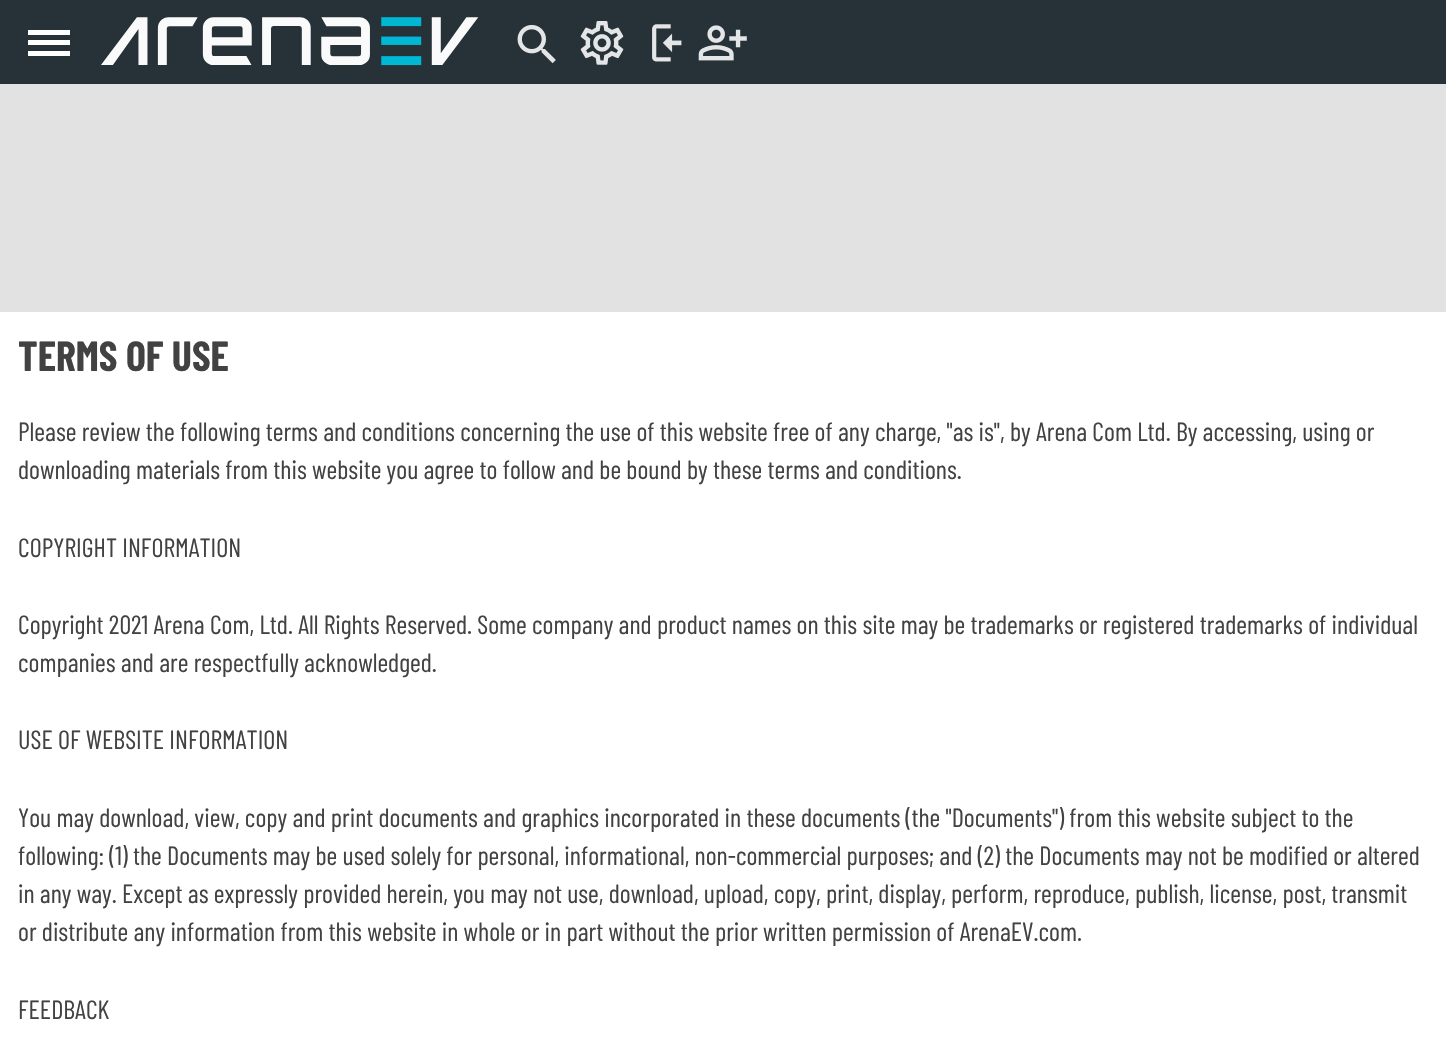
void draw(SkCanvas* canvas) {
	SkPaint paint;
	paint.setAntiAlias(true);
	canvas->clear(0xffe2e2e2);
	paint.setColor(0xff263238);
	canvas->drawRect(SkRect::MakeXYWH(0, 0, 1446, 84), paint);
	paint.setColor(0xffffffff);
	canvas->drawRect(SkRect::MakeXYWH(28, 40, 42, 5), paint);
	canvas->drawRect(SkRect::MakeXYWH(28, 30, 42, 5), paint);
	canvas->drawRect(SkRect::MakeXYWH(28, 51, 42, 5), paint);
	canvas->drawImageRect(SkImages::DeferredFromEncodedData(SkData::MakeFromFileName("img1.png")), SkRect::MakeXYWH(101, 17, 378, 49), SkSamplingOptions());
	canvas->drawImageRect(SkImages::DeferredFromEncodedData(SkData::MakeFromFileName("img2.png")), SkRect::MakeXYWH(517, 24, 39, 40), SkSamplingOptions());
	canvas->drawImageRect(SkImages::DeferredFromEncodedData(SkData::MakeFromFileName("img3.png")), SkRect::MakeXYWH(580, 21, 44, 44), SkSamplingOptions());
	canvas->drawImageRect(SkImages::DeferredFromEncodedData(SkData::MakeFromFileName("img4.png")), SkRect::MakeXYWH(652, 24, 30, 38), SkSamplingOptions());
	canvas->drawImageRect(SkImages::DeferredFromEncodedData(SkData::MakeFromFileName("img5.png")), SkRect::MakeXYWH(698, 25, 49, 36), SkSamplingOptions());
	canvas->drawRect(SkRect::MakeXYWH(0, 312, 1446, 752), paint);
	SkFont f1(fontMgr->matchFamilyStyle("Barlow Condensed", SkFontStyle::Bold()), 42);
	f1.setSubpixel(true);
	paint.setColor(0xff424242);
	canvas->drawString("TERMS OF USE", 18, 371, f1, paint);
	SkFont f2(fontMgr->matchFamilyStyle("Barlow Condensed", SkFontStyle::Normal()), 26.25);
	f2.setSubpixel(true);
	canvas->drawString("Please review the following terms and conditions concerning the use of this website free of any charge, \"as is\", by Arena Com Ltd. By accessing, using or", 18, 441, f2, paint);
	canvas->drawString("downloading materials from this website you agree to follow and be bound by these terms and conditions.", 18, 479, f2, paint);
	canvas->drawString("COPYRIGHT INFORMATION", 18, 557, f2, paint);
	canvas->drawString("Copyright 2021 Arena Com, Ltd. All Rights Reserved. Some company and product names on this site may be trademarks or registered trademarks of individual", 18, 634, f2, paint);
	canvas->drawString("companies and are respectfully acknowledged.", 18, 672, f2, paint);
	canvas->drawString("USE OF WEBSITE INFORMATION", 18, 749, f2, paint);
	canvas->drawString("You may download, view, copy and print documents and graphics incorporated in these documents (the \"Documents\") from this website subject to the", 18, 827, f2, paint);
	canvas->drawString("following: (1) the Documents may be used solely for personal, informational, non-commercial purposes; and (2) the Documents may not be modified or altered", 18, 865, f2, paint);
	canvas->drawString("in any way. Except as expressly provided herein, you may not use, download, upload, copy, print, display, perform, reproduce, publish, license, post, transmit", 18, 903, f2, paint);
	canvas->drawString("or distribute any information from this website in whole or in part without the prior written permission of ArenaEV.com.", 18, 941, f2, paint);
	canvas->drawString("FEEDBACK", 18, 1019, f2, paint);
}
